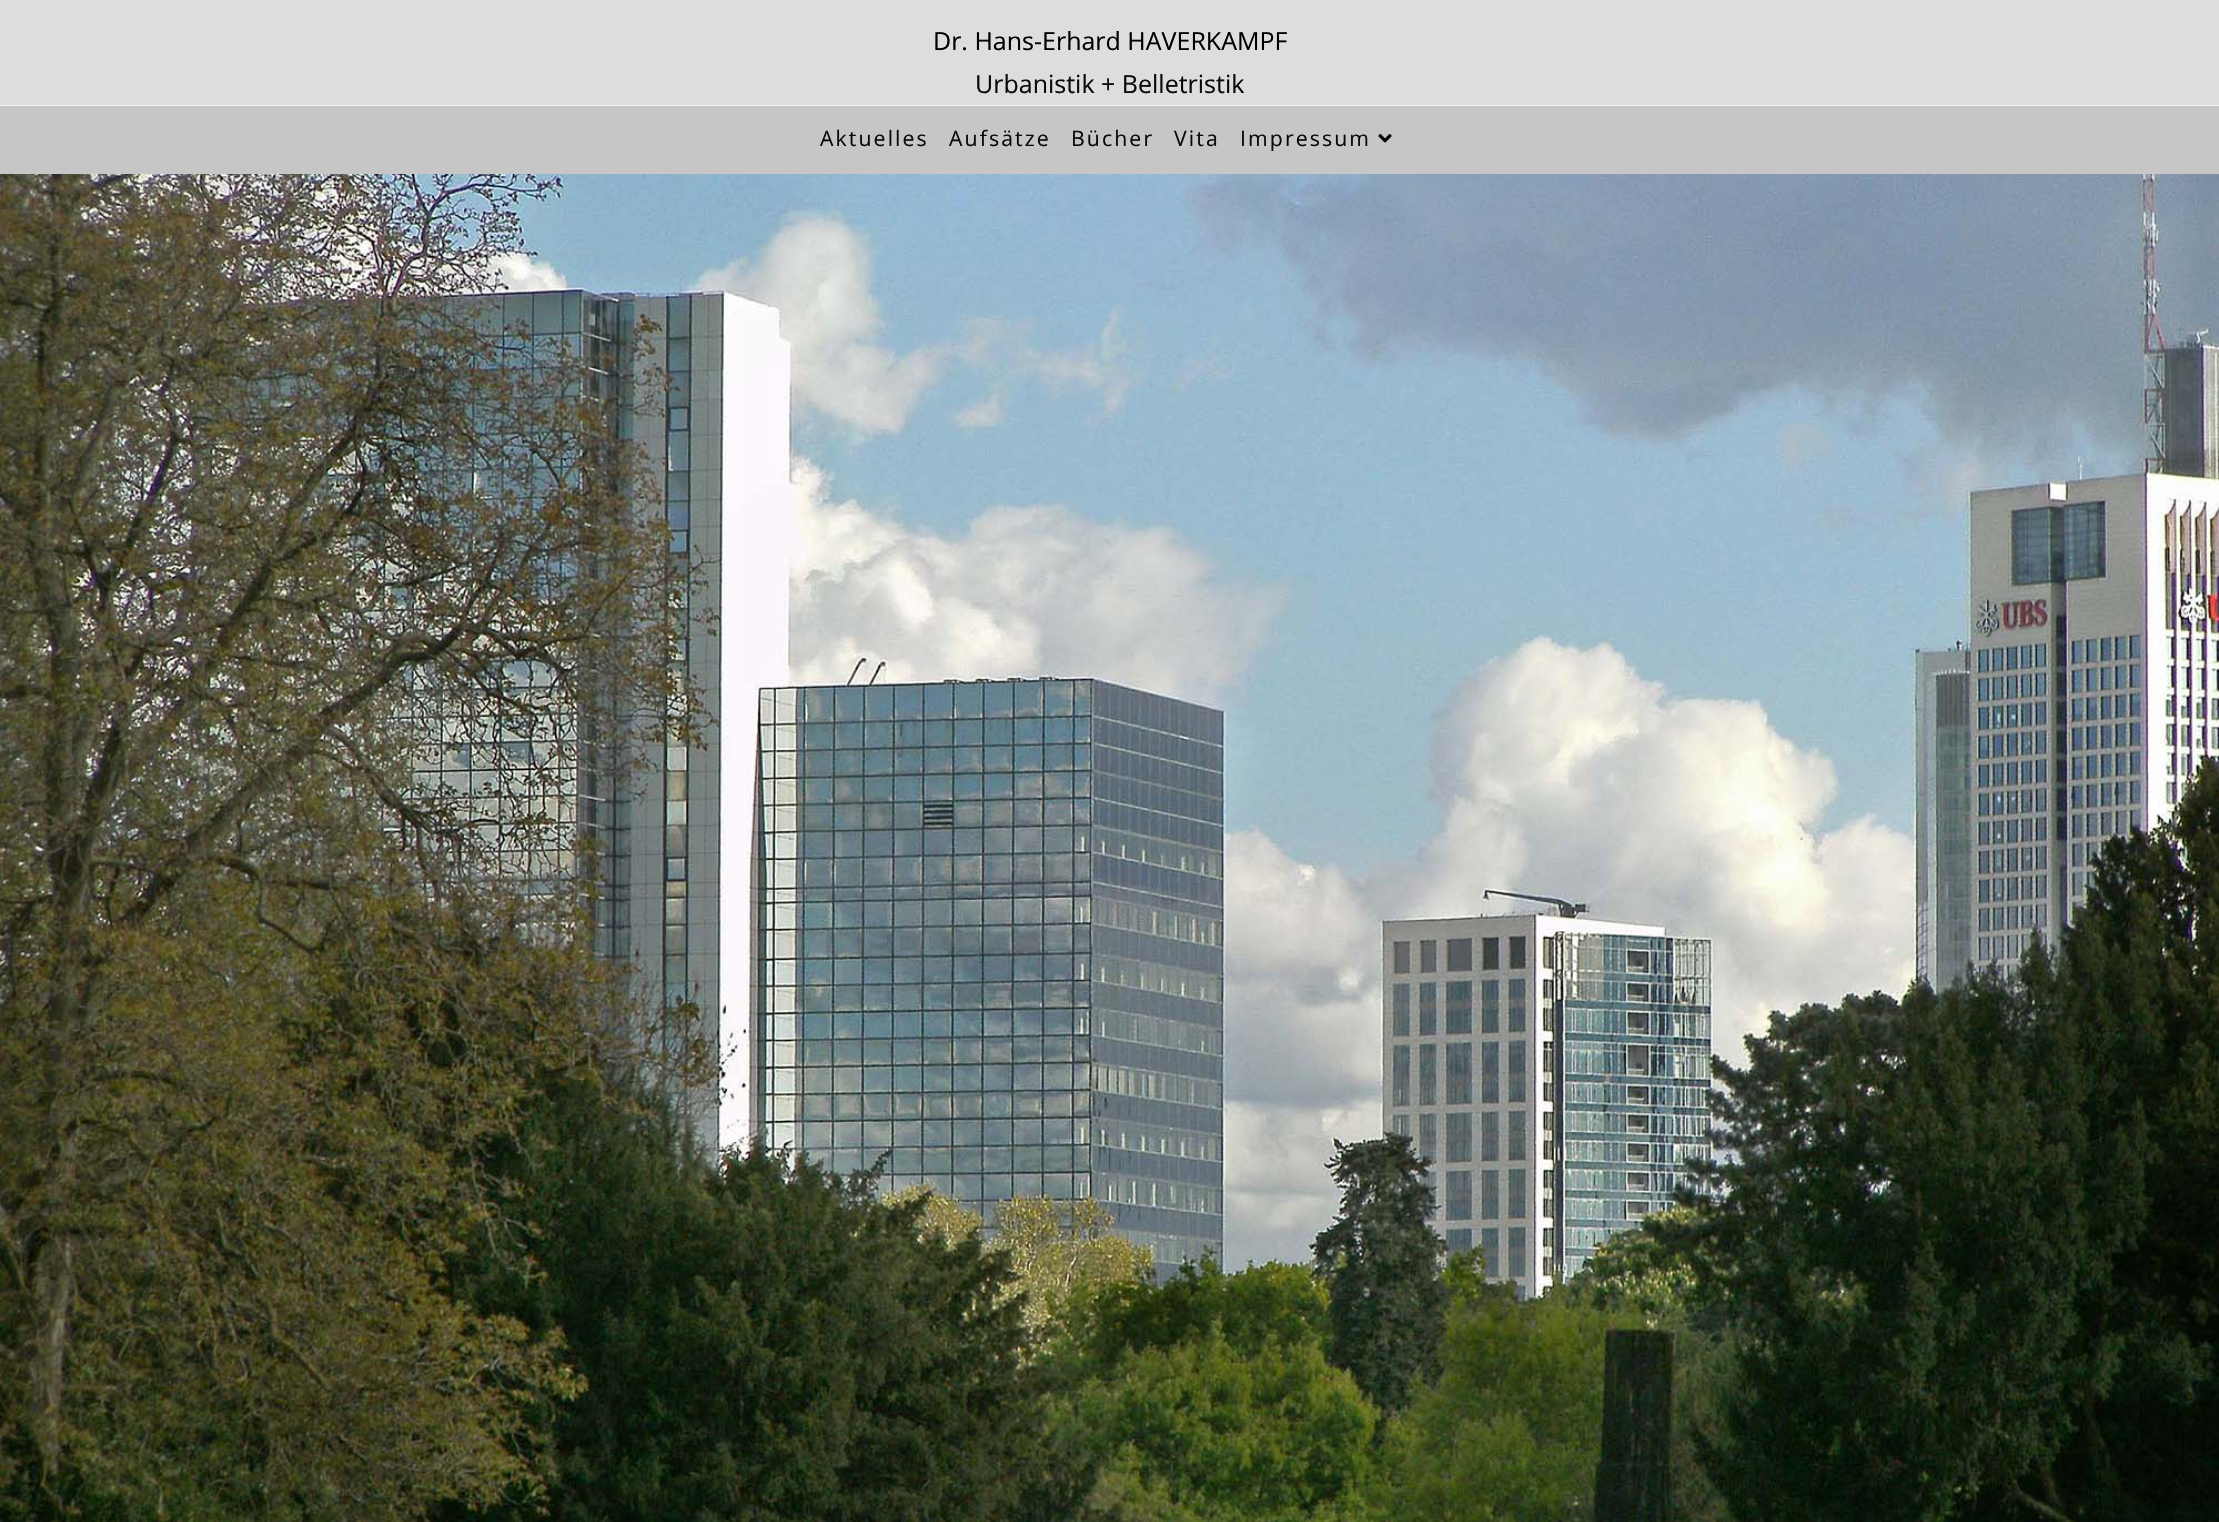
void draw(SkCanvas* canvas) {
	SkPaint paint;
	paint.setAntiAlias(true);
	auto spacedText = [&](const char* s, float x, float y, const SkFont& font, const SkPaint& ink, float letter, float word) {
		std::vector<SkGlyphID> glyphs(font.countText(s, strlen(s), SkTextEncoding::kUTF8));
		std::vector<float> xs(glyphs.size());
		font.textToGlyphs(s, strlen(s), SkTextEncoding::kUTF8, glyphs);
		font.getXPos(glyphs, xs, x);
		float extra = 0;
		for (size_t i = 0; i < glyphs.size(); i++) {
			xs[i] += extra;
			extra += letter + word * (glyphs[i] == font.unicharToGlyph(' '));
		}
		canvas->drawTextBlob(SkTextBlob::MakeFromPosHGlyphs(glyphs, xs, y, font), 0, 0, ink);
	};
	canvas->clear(0xffffffff);
	paint.setColor(0xffdddddd);
	canvas->drawRect(SkRect::MakeXYWH(0, 0, 2219, 105), paint);
	paint.setColor(0xfff1f1f1);
	canvas->drawRect(SkRect::MakeXYWH(0, 105, 2219, 1), paint);
	SkFont f1(fontMgr->matchFamilyStyle("Open Sans", SkFontStyle::Normal()), 25);
	f1.setSubpixel(true);
	paint.setColor(0xff000000);
	canvas->drawString("Dr. Hans-Erhard HAVERKAMPF", 933, 50, f1, paint);
	paint.setColor(0xff0a0a0a);
	canvas->drawString("Urbanistik + Belletristik", 975, 93, f1, paint);
	paint.setColor(0xffc6c6c6);
	canvas->drawRect(SkRect::MakeXYWH(0, 106, 2219, 68), paint);
	SkFont f2(fontMgr->matchFamilyStyle("Open Sans", SkFontStyle::Normal()), 21.25);
	f2.setSubpixel(true);
	paint.setColor(0xff0a0a0a);
	spacedText("Aktuelles", 820, 146, f2, paint, 2.1, 0);
	spacedText("Aufsätze", 949, 146, f2, paint, 2.1, 0);
	spacedText("Bücher", 1071, 146, f2, paint, 2.1, 0);
	spacedText("Vita", 1174, 146, f2, paint, 2.1, 0);
	spacedText("Impressum", 1240, 146, f2, paint, 2.1, 0);
	canvas->drawImageRect(SkImages::DeferredFromEncodedData(SkData::MakeFromFileName("img1.png")), SkRect::MakeXYWH(1378, 134, 14, 9), SkSamplingOptions());
	canvas->drawImageRect(SkImages::DeferredFromEncodedData(SkData::MakeFromFileName("img2.png")), SkRect::MakeXYWH(0, 174, 2219, 1348), SkSamplingOptions());
}
